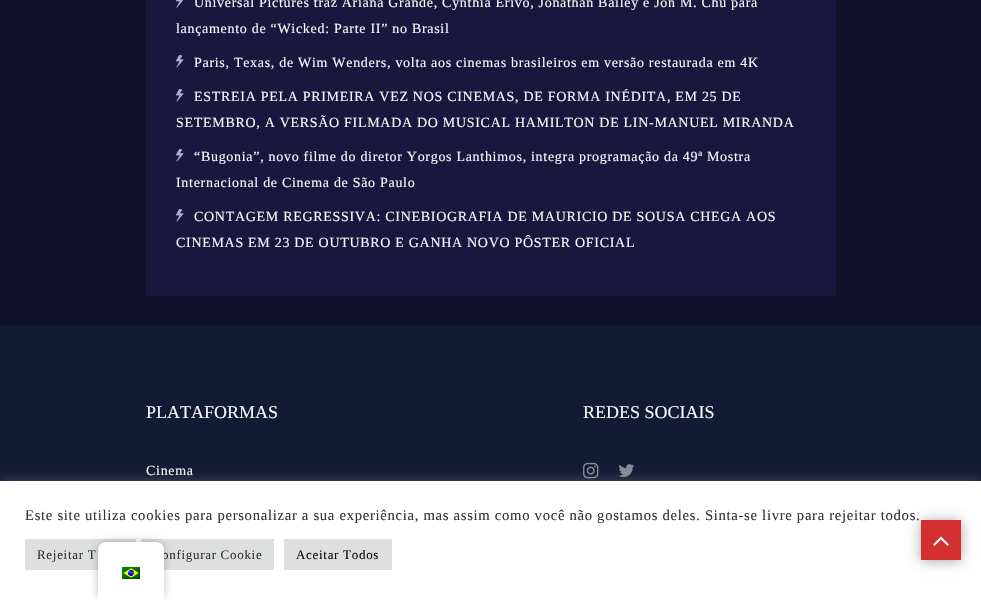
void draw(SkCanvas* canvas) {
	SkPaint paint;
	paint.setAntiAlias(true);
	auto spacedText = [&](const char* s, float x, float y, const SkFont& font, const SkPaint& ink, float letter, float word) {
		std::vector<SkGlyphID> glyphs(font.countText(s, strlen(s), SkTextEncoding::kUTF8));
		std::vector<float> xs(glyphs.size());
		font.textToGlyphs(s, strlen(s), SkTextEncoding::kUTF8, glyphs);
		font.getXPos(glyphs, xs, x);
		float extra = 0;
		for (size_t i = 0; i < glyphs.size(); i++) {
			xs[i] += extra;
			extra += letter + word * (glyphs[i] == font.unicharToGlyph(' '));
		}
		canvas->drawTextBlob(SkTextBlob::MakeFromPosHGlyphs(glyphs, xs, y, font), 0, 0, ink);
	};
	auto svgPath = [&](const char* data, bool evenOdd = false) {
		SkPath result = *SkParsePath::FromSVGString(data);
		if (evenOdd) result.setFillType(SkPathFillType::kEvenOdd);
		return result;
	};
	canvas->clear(0xff12102b);
	paint.setColor(0xff1a173e);
	canvas->drawRect(SkRect::MakeXYWH(146, 0, 690, 296), paint);
	canvas->drawImageRect(SkImages::DeferredFromEncodedData(SkData::MakeFromFileName("img1.png")), SkRect::MakeXYWH(176, 0, 8, 8), SkSamplingOptions());
	SkFont f1(fontMgr->matchFamilyStyle("Liberation Serif", SkFontStyle::Normal()), 14);
	f1.setSubpixel(true);
	paint.setColor(0xfff7f7f7);
	spacedText("Universal Pictures traz Ariana Grande, Cynthia Erivo, Jonathan Bailey e Jon M. Chu para", 194, 7, f1, paint, 0.7, 0);
	spacedText("lançamento de “Wicked: Parte II” no Brasil", 176, 33, f1, paint, 0.7, 0);
	canvas->drawImageRect(SkImages::DeferredFromEncodedData(SkData::MakeFromFileName("img2.png")), SkRect::MakeXYWH(176, 54, 8, 14), SkSamplingOptions());
	spacedText("Paris, Texas, de Wim Wenders, volta aos cinemas brasileiros em versão restaurada em 4K", 194, 67, f1, paint, 0.7, 0);
	canvas->drawImageRect(SkImages::DeferredFromEncodedData(SkData::MakeFromFileName("img2.png")), SkRect::MakeXYWH(176, 88, 8, 14), SkSamplingOptions());
	spacedText("ESTREIA PELA PRIMEIRA VEZ NOS CINEMAS, DE FORMA INÉDITA, EM 25 DE", 194, 101, f1, paint, 0.7, 0);
	spacedText("SETEMBRO, A VERSÃO FILMADA DO MUSICAL HAMILTON DE LIN-MANUEL MIRANDA", 176, 127, f1, paint, 0.7, 0);
	canvas->drawImageRect(SkImages::DeferredFromEncodedData(SkData::MakeFromFileName("img2.png")), SkRect::MakeXYWH(176, 148, 8, 14), SkSamplingOptions());
	spacedText("“Bugonia”, novo filme do diretor Yorgos Lanthimos, integra programação da 49ª Mostra", 194, 161, f1, paint, 0.7, 0);
	spacedText("Internacional de Cinema de São Paulo", 176, 187, f1, paint, 0.7, 0);
	canvas->drawImageRect(SkImages::DeferredFromEncodedData(SkData::MakeFromFileName("img2.png")), SkRect::MakeXYWH(176, 208, 8, 14), SkSamplingOptions());
	spacedText("CONTAGEM REGRESSIVA: CINEBIOGRAFIA DE MAURICIO DE SOUSA CHEGA AOS", 194, 221, f1, paint, 0.7, 0);
	spacedText("CINEMAS EM 23 DE OUTUBRO E GANHA NOVO PÔSTER OFICIAL", 176, 247, f1, paint, 0.7, 0);
	paint.setColor(0xff121b34);
	canvas->drawRect(SkRect::MakeXYWH(0, 326, 981, 155), paint);
	SkFont f2(fontMgr->matchFamilyStyle("Liberation Serif", SkFontStyle::Normal()), 18);
	f2.setSubpixel(true);
	paint.setColor(0xfff7f7f7);
	canvas->drawString("PLATAFORMAS", 146, 418, f2, paint);
	spacedText("Cinema", 146, 475, f1, paint, 0.7, 0);
	canvas->drawString("REDES SOCIAIS", 583, 418, f2, paint);
	canvas->drawImageRect(SkImages::DeferredFromEncodedData(SkData::MakeFromFileName("img3.png")), SkRect::MakeXYWH(583, 462, 16, 17), SkSamplingOptions());
	canvas->drawImageRect(SkImages::DeferredFromEncodedData(SkData::MakeFromFileName("img4.png")), SkRect::MakeXYWH(618, 464, 16, 13), SkSamplingOptions());
	paint.setColor(0x4dacabab);
	paint.setMaskFilter(SkMaskFilter::MakeBlur(kNormal_SkBlurStyle, 5));
	canvas->drawRect(SkRect::MakeXYWH(0, 480, 981, 119), paint);
	paint.setMaskFilter(nullptr);
	paint.setColor(0xffffffff);
	canvas->drawRect(SkRect::MakeXYWH(0, 481, 981, 119), paint);
	SkFont f3(fontMgr->matchFamilyStyle("Liberation Serif", SkFontStyle::Normal()), 14.67);
	f3.setSubpixel(true);
	paint.setColor(0xff333333);
	spacedText("Este site utiliza cookies para personalizar a sua experiência, mas assim como você não gostamos deles. Sinta-se livre para rejeitar todos.", 25, 520, f3, paint, 0.7, 0);
	paint.setColor(0xffdedfe0);
	canvas->drawRect(SkRect::MakeXYWH(25, 539, 111, 31), paint);
	SkFont f4(fontMgr->matchFamilyStyle("Liberation Serif", SkFontStyle::Normal()), 13);
	f4.setSubpixel(true);
	paint.setColor(0xff333333);
	spacedText("Rejeitar T", 37, 559, f4, paint, 0.7, 0);
	paint.setColor(0xffdedfe0);
	canvas->drawRect(SkRect::MakeXYWH(141, 539, 133, 31), paint);
	paint.setColor(0xff333333);
	spacedText("onfigurar Cookie", 162, 559, f4, paint, 0.7, 0);
	paint.setColor(0xffdedfe0);
	canvas->drawRect(SkRect::MakeXYWH(284, 539, 108, 31), paint);
	paint.setColor(0xff0a0a0a);
	spacedText("Aceitar Todos", 296, 559, f4, paint, 0.7, 0);
	paint.setColor(0x59000000);
	paint.setMaskFilter(SkMaskFilter::MakeBlur(kNormal_SkBlurStyle, 6));
	canvas->drawRect(SkRect::MakeXYWH(921, 521, 40, 40), paint);
	paint.setMaskFilter(nullptr);
	paint.setColor(0xffd32f2f);
	canvas->drawRect(SkRect::MakeXYWH(921, 520, 40, 40), paint);
	canvas->drawImageRect(SkImages::DeferredFromEncodedData(SkData::MakeFromFileName("img5.png")), SkRect::MakeXYWH(933, 536, 16, 10), SkSamplingOptions());
	paint.setColor(0x40000000);
	paint.setMaskFilter(SkMaskFilter::MakeBlur(kNormal_SkBlurStyle, 4));
	canvas->drawRoundRect(SkRect::MakeXYWH(98, 542, 66, 58), 8, 8, paint);
	paint.setMaskFilter(nullptr);
	paint.setColor(0xffffffff);
	canvas->drawPath(svgPath("M106 542H156C160.5 542 164 545.5 164 550V600H98V550C98 545.5 101.5 542 106 542Z"), paint);
	canvas->drawImageRect(SkImages::DeferredFromEncodedData(SkData::MakeFromFileName("img6.png")), SkRect::MakeXYWH(122, 567, 18, 12), SkSamplingOptions());
}
